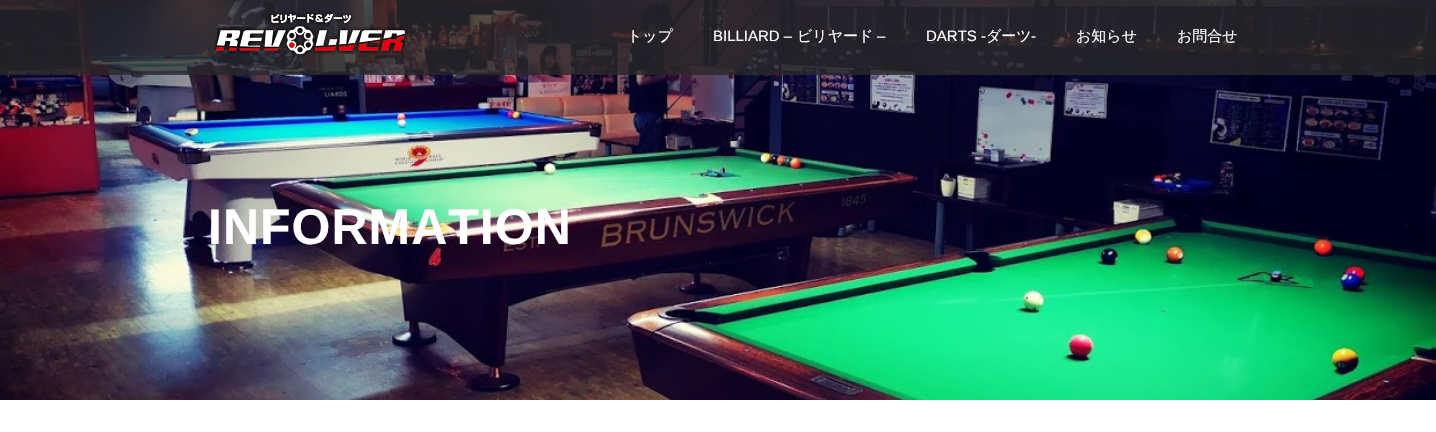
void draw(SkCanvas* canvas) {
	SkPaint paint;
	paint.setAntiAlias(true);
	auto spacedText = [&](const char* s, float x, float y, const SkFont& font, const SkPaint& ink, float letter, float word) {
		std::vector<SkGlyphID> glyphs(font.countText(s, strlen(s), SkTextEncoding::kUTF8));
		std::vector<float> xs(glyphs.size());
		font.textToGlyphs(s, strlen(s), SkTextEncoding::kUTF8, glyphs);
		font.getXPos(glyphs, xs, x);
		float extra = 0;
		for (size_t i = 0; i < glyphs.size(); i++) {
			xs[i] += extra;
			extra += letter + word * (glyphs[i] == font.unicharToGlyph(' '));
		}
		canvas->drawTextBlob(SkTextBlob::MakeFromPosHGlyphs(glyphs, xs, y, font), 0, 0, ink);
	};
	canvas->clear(0xffffffff);
	canvas->drawImageRect(SkImages::DeferredFromEncodedData(SkData::MakeFromFileName("img1.png")), SkRect::MakeXYWH(0, 0, 1436, 400), SkSamplingOptions());
	paint.setColor(0xcc282828);
	canvas->drawRect(SkRect::MakeXYWH(0, 0, 1436, 75), paint);
	canvas->drawImageRect(SkImages::DeferredFromEncodedData(SkData::MakeFromFileName("img2.png")), SkRect::MakeXYWH(213, 11, 195, 46), SkSamplingOptions());
	SkFont f1(fontMgr->matchFamilyStyle("WenQuanYi Zen Hei", SkFontStyle(500, SkFontStyle::kNormal_Width, SkFontStyle::kUpright_Slant)), 15);
	f1.setSubpixel(true);
	paint.setColor(0xffffffff);
	canvas->drawString("トップ", 627, 41, f1, paint);
	SkFont f2(fontMgr->matchFamilyStyle("Liberation Sans", SkFontStyle::Normal()), 15);
	f2.setSubpixel(true);
	canvas->drawString("BILLIARD –", 713, 41, f2, paint);
	canvas->drawString("ビリヤード", 797, 41, f1, paint);
	canvas->drawString("–", 877, 41, f2, paint);
	canvas->drawString("DARTS -", 926, 41, f2, paint);
	canvas->drawString("ダーツ", 986, 41, f1, paint);
	canvas->drawString("-", 1031, 41, f2, paint);
	canvas->drawString("お知らせ", 1076, 41, f1, paint);
	canvas->drawString("お問合せ", 1177, 41, f1, paint);
	SkFont f3(fontMgr->matchFamilyStyle("Liberation Sans", SkFontStyle::Bold()), 50);
	f3.setSubpixel(true);
	spacedText("INFORMATION", 208, 244, f3, paint, 1, 0);
}
